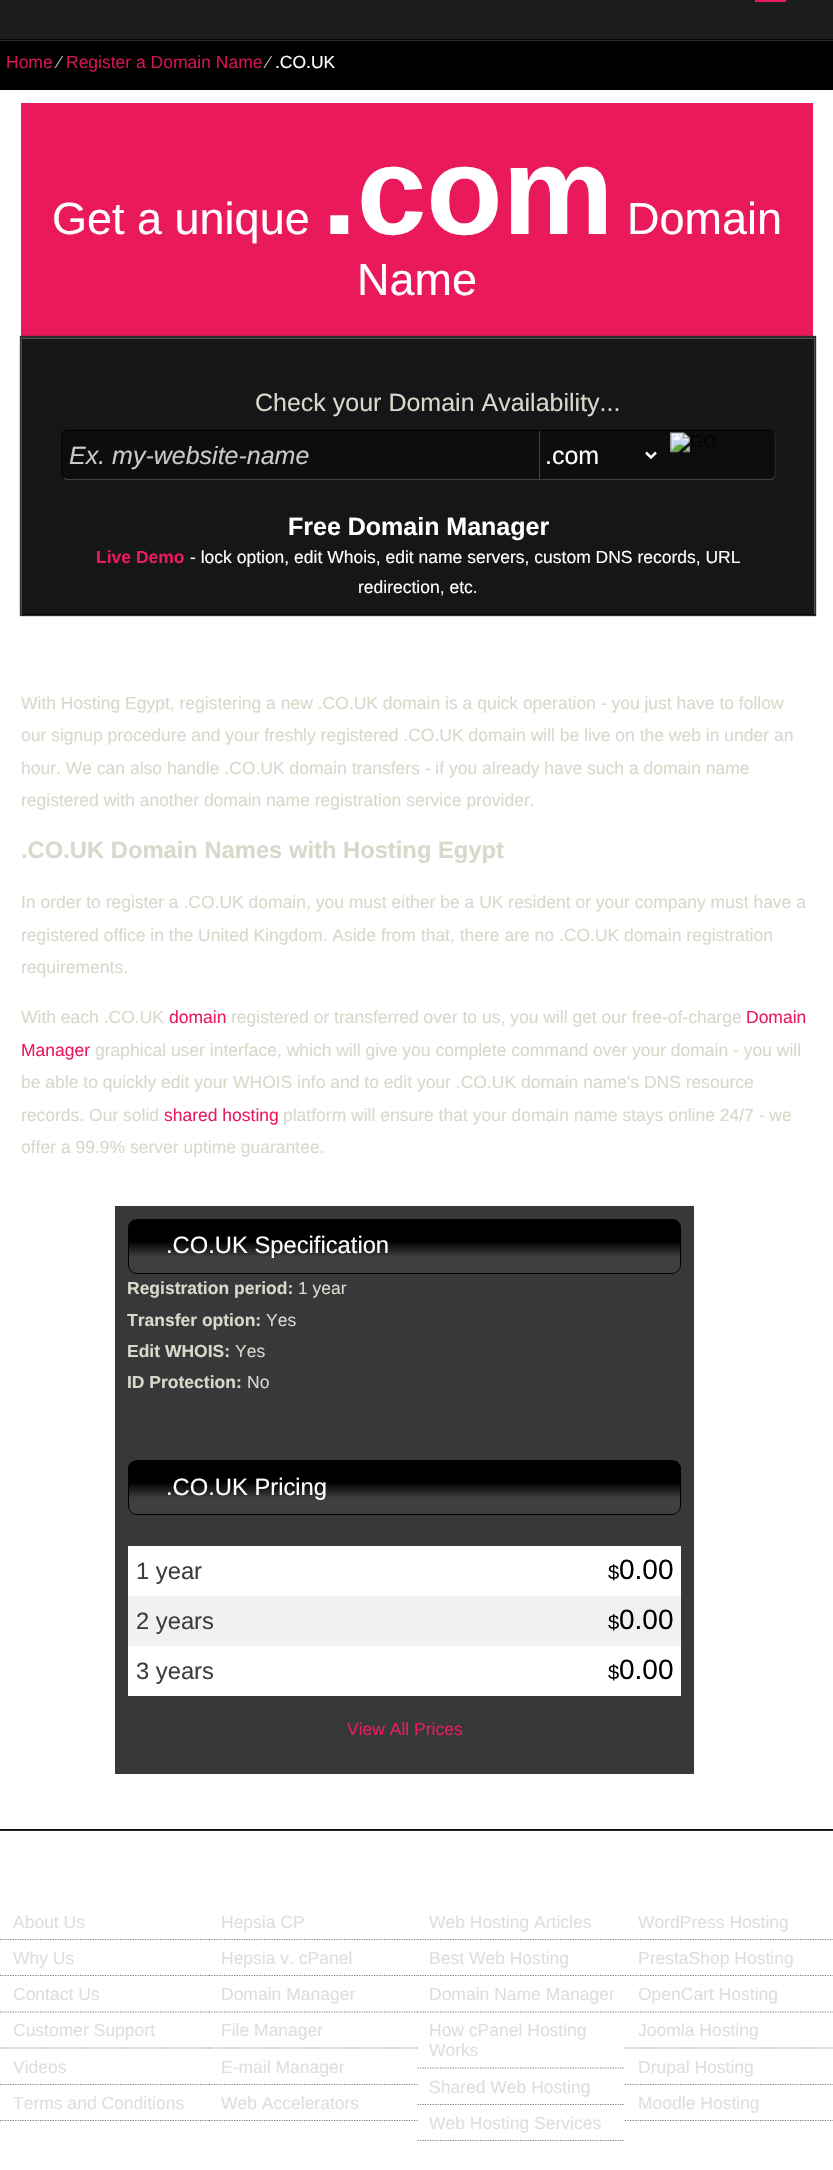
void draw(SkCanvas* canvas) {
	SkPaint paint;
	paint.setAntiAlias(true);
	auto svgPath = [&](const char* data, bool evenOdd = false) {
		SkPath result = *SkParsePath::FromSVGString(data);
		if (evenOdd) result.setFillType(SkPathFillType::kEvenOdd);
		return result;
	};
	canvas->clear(0xffffffff);
	paint.setColor(0xff060707);
	canvas->drawRect(SkRect::MakeXYWH(0, 1829, 833, 1), paint);
	paint.setColor(0xff1b1c1d);
	canvas->drawRect(SkRect::MakeXYWH(0, 0, 833, 39), paint);
	paint.setColor(0xffeb1a5c);
	canvas->drawRect(SkRect::MakeXYWH(755, 0, 31, 2), paint);
	paint.setColor(0xff000000);
	canvas->drawRect(SkRect::MakeXYWH(0, 41, 833, 49), paint);
	paint.setColor(0xff2b2d2d);
	canvas->drawRect(SkRect::MakeXYWH(0, 40, 833, 1), paint);
	paint.setColor(0xff060707);
	canvas->drawRect(SkRect::MakeXYWH(0, 39, 833, 1), paint);
	SkFont f1(fontMgr->matchFamilyStyle("Liberation Sans", SkFontStyle::Normal()), 17.5);
	f1.setSubpixel(true);
	paint.setColor(0xffd01450);
	canvas->drawString("Home", 6, 68, f1, paint);
	paint.setColor(0xffadb5bc);
	canvas->drawString("⁄", 58, 68, f1, paint);
	paint.setColor(0xffd01450);
	canvas->drawString("Register a Domain Name", 66, 68, f1, paint);
	paint.setColor(0xffadb5bc);
	canvas->drawString("⁄", 267, 68, f1, paint);
	paint.setColor(0xffffffff);
	canvas->drawString(".CO.UK", 275, 68, f1, paint);
	paint.setColor(0xffe9195b);
	canvas->drawRect(SkRect::MakeXYWH(21, 103, 792, 235), paint);
	SkFont f2(fontMgr->matchFamilyStyle("Liberation Sans", SkFontStyle::Normal()), 45);
	f2.setSubpixel(true);
	paint.setColor(0xffffffff);
	canvas->drawString("Get a unique", 52, 234, f2, paint);
	SkFont f3(fontMgr->matchFamilyStyle("Liberation Sans", SkFontStyle::Bold()), 125);
	f3.setSubpixel(true);
	canvas->drawString(".com", 322, 234, f3, paint);
	canvas->drawString("Domain", 627, 234, f2, paint);
	canvas->drawString("Name", 357, 295, f2, paint);
	paint.setColor(0xff2b2d2d);
	paint.setMaskFilter(SkMaskFilter::MakeBlur(kNormal_SkBlurStyle, 0.5));
	canvas->drawRect(SkRect::MakeXYWH(20, 336, 796, 280), paint);
	paint.setMaskFilter(nullptr);
	paint.setColor(0xff151617);
	canvas->drawRect(SkRect::MakeXYWH(22, 339, 792, 275), paint);
	paint.setColor(0xff505152);
	canvas->drawRect(SkRect::MakeXYWH(21, 338, 794, 1), paint);
	canvas->drawRect(SkRect::MakeXYWH(814, 338, 1, 277), paint);
	paint.setColor(0xff060707);
	canvas->drawRect(SkRect::MakeXYWH(21, 614, 794, 1), paint);
	paint.setColor(0xff505152);
	canvas->drawRect(SkRect::MakeXYWH(21, 338, 1, 277), paint);
	SkFont f4(fontMgr->matchFamilyStyle("Liberation Sans", SkFontStyle::Normal()), 25);
	f4.setSubpixel(true);
	paint.setColor(0xffd8d8cb);
	canvas->drawString("Check your Domain Availability...", 255, 411, f4, paint);
	paint.setColor(0xff0d0d0e);
	canvas->drawRoundRect(SkRect::MakeXYWH(61, 430, 715, 50), 6, 6, paint);
	paint.setStroke(true);
	paint.setStrokeWidth(1.2);
	paint.setColor(0xff000000);
	canvas->drawPath(svgPath("M63.5 432.5C64.5 431 66 430.5 67.5 430.5H770C771.5 430.5 773 431 774 432.5"), paint);
	paint.setColor(0xff252526);
	canvas->drawPath(svgPath("M774 432.5C775 433.5 775.5 435 775.5 436V474C775.5 475 775 476.5 774 477.5"), paint);
	paint.setColor(0xff424243);
	canvas->drawPath(svgPath("M774 477.5C773 479 771.5 479.5 770 479.5H67.5C66 479.5 64.5 479 63.5 477.5"), paint);
	paint.setColor(0xff030303);
	canvas->drawPath(svgPath("M63.5 477.5C62.5 476.5 62 475 62 474V436C62 435 62.5 433.5 63.5 432.5"), paint);
	canvas->drawImageRect(SkImages::DeferredFromEncodedData(SkData::MakeFromFileName("img1.png")), SkRect::MakeXYWH(670, 432, 46, 21), SkSamplingOptions());
	paint.setStroke(false);
	paint.setColor(0xff424243);
	canvas->drawRect(SkRect::MakeXYWH(539, 431, 1, 48), paint);
	SkFont f5(fontMgr->matchFamilyStyle("Liberation Sans", SkFontStyle::Italic()), 25);
	f5.setSubpixel(true);
	paint.setColor(0xffc9c9c8);
	canvas->drawString("Ex. my-website-name", 69, 464, f5, paint);
	paint.setColor(0xff0d0d0e);
	canvas->drawRect(SkRect::MakeXYWH(540, 478, 121, 1), paint);
	paint.setStroke(true);
	paint.setStrokeWidth(2.5);
	paint.setColor(0xffffffff);
	canvas->drawPath(svgPath("M646 452.5L651 457.5L656 452.5"), paint);
	paint.setStroke(false);
	canvas->drawString(".com", 545, 464, f4, paint);
	SkFont f6(fontMgr->matchFamilyStyle("Liberation Sans", SkFontStyle::Bold()), 25);
	f6.setSubpixel(true);
	canvas->drawString("Free Domain Manager", 288, 535, f6, paint);
	SkFont f7(fontMgr->matchFamilyStyle("Liberation Sans", SkFontStyle::Bold()), 17.5);
	f7.setSubpixel(true);
	paint.setColor(0xffeb1a5c);
	canvas->drawString("Live Demo", 96, 563, f7, paint);
	paint.setColor(0xffffffff);
	canvas->drawString("- lock option, edit Whois, edit name servers, custom DNS records, URL", 190, 563, f1, paint);
	canvas->drawString("redirection, etc.", 358, 593, f1, paint);
	paint.setColor(0xffd8d8cb);
	canvas->drawString("With Hosting Egypt, registering a new .CO.UK domain is a quick operation - you just have to follow", 21, 709, f1, paint);
	canvas->drawString("our signup procedure and your freshly registered .CO.UK domain will be live on the web in under an", 21, 741, f1, paint);
	canvas->drawString("hour. We can also handle .CO.UK domain transfers - if you already have such a domain name", 21, 774, f1, paint);
	canvas->drawString("registered with another domain name registration service provider.", 21, 806, f1, paint);
	SkFont f8(fontMgr->matchFamilyStyle("Liberation Sans", SkFontStyle::Bold()), 23.75);
	f8.setSubpixel(true);
	canvas->drawString(".CO.UK Domain Names with Hosting Egypt", 21, 858, f8, paint);
	canvas->drawString("In order to register a .CO.UK domain, you must either be a UK resident or your company must have a", 21, 908, f1, paint);
	canvas->drawString("registered office in the United Kingdom. Aside from that, there are no .CO.UK domain registration", 21, 941, f1, paint);
	canvas->drawString("requirements.", 21, 973, f1, paint);
	canvas->drawString("With each .CO.UK", 21, 1023, f1, paint);
	paint.setColor(0xffeb1a5c);
	canvas->drawString("domain", 169, 1023, f1, paint);
	paint.setColor(0xffd8d8cb);
	canvas->drawString("registered or transferred over to us, you will get our free-of-charge", 231, 1023, f1, paint);
	paint.setColor(0xffeb1a5c);
	canvas->drawString("Domain", 746, 1023, f1, paint);
	canvas->drawString("Manager", 21, 1056, f1, paint);
	paint.setColor(0xffd8d8cb);
	canvas->drawString("graphical user interface, which will give you complete command over your domain - you will", 95, 1056, f1, paint);
	canvas->drawString("be able to quickly edit your WHOIS info and to edit your .CO.UK domain name's DNS resource", 21, 1088, f1, paint);
	canvas->drawString("records. Our solid", 21, 1121, f1, paint);
	paint.setColor(0xffeb1a5c);
	canvas->drawString("shared hosting", 164, 1121, f1, paint);
	paint.setColor(0xffd8d8cb);
	canvas->drawString("platform will ensure that your domain name stays online 24/7 - we", 283, 1121, f1, paint);
	canvas->drawString("offer a 99.9% server uptime guarantee.", 21, 1153, f1, paint);
	paint.setColor(0xff373839);
	canvas->drawRect(SkRect::MakeXYWH(115, 1206, 579, 568), paint);
	canvas->save();
	canvas->clipPath(svgPath("M137 1219H672C677 1219 681 1223 681 1228V1265C681 1270 677 1274 672 1274H137C132 1274 128 1270 128 1265V1228C128 1223 132 1219 137 1219Z"), true);
	{
		const SkColor colors[] = {0xff3f3f3f, 0xff000000};
		const float stops[] = {0.3, 0.6};
		const SkPoint ends[] = {{129, 1273}, {129, 1220}};
		paint.setShader(SkGradientShader::MakeLinear(ends, colors, stops, 2, SkTileMode::kClamp));
		paint.setAlpha(255);
	}
	canvas->drawRect(SkRect::MakeXYWH(128, 1220, 553, 53), paint);
	canvas->restore();
	paint.setStroke(true);
	paint.setStrokeWidth(1);
	paint.setShader(nullptr);
	paint.setColor(0xff000000);
	canvas->drawRoundRect(SkRect::MakeXYWH(128.5, 1219.5, 552, 54), 8.5, 8.5, paint);
	SkFont f9(fontMgr->matchFamilyStyle("Liberation Sans", SkFontStyle::Normal()), 23.75);
	f9.setSubpixel(true);
	paint.setStroke(false);
	paint.setColor(0xffffffff);
	canvas->drawString(".CO.UK Specification", 166, 1253, f9, paint);
	paint.setColor(0xffd8d8cb);
	canvas->drawString("Registration period:", 127, 1294, f7, paint);
	canvas->drawString("1 year", 298, 1294, f1, paint);
	canvas->drawString("Transfer option:", 127, 1326, f7, paint);
	canvas->drawString("Yes", 266, 1326, f1, paint);
	canvas->drawString("Edit WHOIS:", 127, 1357, f7, paint);
	canvas->drawString("Yes", 235, 1357, f1, paint);
	canvas->drawString("ID Protection:", 127, 1388, f7, paint);
	canvas->drawString("No", 247, 1388, f1, paint);
	canvas->save();
	canvas->clipPath(svgPath("M137 1460H672C677 1460 681 1464 681 1469V1506C681 1511 677 1515 672 1515H137C132 1515 128 1511 128 1506V1469C128 1464 132 1460 137 1460Z"), true);
	{
		const SkColor colors[] = {0xff3f3f3f, 0xff000000};
		const float stops[] = {0.3, 0.6};
		const SkPoint ends[] = {{129, 1514}, {129, 1461}};
		paint.setShader(SkGradientShader::MakeLinear(ends, colors, stops, 2, SkTileMode::kClamp));
		paint.setAlpha(255);
	}
	canvas->drawRect(SkRect::MakeXYWH(128, 1461, 553, 53), paint);
	canvas->restore();
	paint.setStroke(true);
	paint.setShader(nullptr);
	paint.setColor(0xff000000);
	canvas->drawRoundRect(SkRect::MakeXYWH(128.5, 1460.5, 552, 54), 8.5, 8.5, paint);
	paint.setStroke(false);
	paint.setColor(0xffffffff);
	canvas->drawString(".CO.UK Pricing", 166, 1495, f9, paint);
	canvas->drawRect(SkRect::MakeXYWH(128, 1546, 553, 50), paint);
	paint.setColor(0xff3d3d3d);
	canvas->drawString("1 year", 136, 1579, f9, paint);
	SkFont f10(fontMgr->matchFamilyStyle("Liberation Sans", SkFontStyle::Normal()), 20);
	f10.setSubpixel(true);
	paint.setColor(0xff000000);
	canvas->drawString("$", 608, 1579, f10, paint);
	SkFont f11(fontMgr->matchFamilyStyle("Liberation Sans", SkFontStyle::Normal()), 28);
	f11.setSubpixel(true);
	canvas->drawString("0.00", 619, 1579, f11, paint);
	paint.setColor(0xfff1f1f1);
	canvas->drawRect(SkRect::MakeXYWH(128, 1596, 553, 50), paint);
	paint.setColor(0xff3d3d3d);
	canvas->drawString("2 years", 136, 1629, f9, paint);
	paint.setColor(0xff000000);
	canvas->drawString("$", 608, 1629, f10, paint);
	canvas->drawString("0.00", 619, 1629, f11, paint);
	paint.setColor(0xffffffff);
	canvas->drawRect(SkRect::MakeXYWH(128, 1646, 553, 50), paint);
	paint.setColor(0xff3d3d3d);
	canvas->drawString("3 years", 136, 1679, f9, paint);
	paint.setColor(0xff000000);
	canvas->drawString("$", 608, 1679, f10, paint);
	canvas->drawString("0.00", 619, 1679, f11, paint);
	paint.setColor(0xffeb1a5c);
	canvas->drawString("View All Prices", 347, 1735, f1, paint);
	paint.setColor(0xff2b2d2d);
	canvas->drawRect(SkRect::MakeXYWH(0, 1830, 833, 1), paint);
	paint.setStroke(true);
	paint.setStrokeWidth(1.2);
	paint.setColor(0xff7e7e7e);
	paint.setPathEffect(SkDashPathEffect::Make({{1.25f, 1.25f}}, 0));
	canvas->drawPath(svgPath("M0 1939.5H209"), paint);
	paint.setPathEffect(nullptr);
	paint.setStroke(false);
	paint.setColor(0xffdfdede);
	canvas->drawString("About Us", 13, 1928, f1, paint);
	paint.setStroke(true);
	paint.setColor(0xff7e7e7e);
	paint.setPathEffect(SkDashPathEffect::Make({{1.25f, 1.25f}}, 0));
	canvas->drawPath(svgPath("M0 1975.5H209"), paint);
	paint.setPathEffect(nullptr);
	paint.setStroke(false);
	paint.setColor(0xffdfdede);
	canvas->drawString("Why Us", 13, 1964, f1, paint);
	paint.setStroke(true);
	paint.setColor(0xff7e7e7e);
	paint.setPathEffect(SkDashPathEffect::Make({{1.25f, 1.25f}}, 0));
	canvas->drawPath(svgPath("M0 2012H209"), paint);
	paint.setPathEffect(nullptr);
	paint.setStroke(false);
	paint.setColor(0xffdfdede);
	canvas->drawString("Contact Us", 13, 2000, f1, paint);
	paint.setStroke(true);
	paint.setColor(0xff7e7e7e);
	paint.setPathEffect(SkDashPathEffect::Make({{1.25f, 1.25f}}, 0));
	canvas->drawPath(svgPath("M0 2048H209"), paint);
	paint.setPathEffect(nullptr);
	paint.setStroke(false);
	paint.setColor(0xffdfdede);
	canvas->drawString("Customer Support", 13, 2036, f1, paint);
	paint.setStroke(true);
	paint.setColor(0xff7e7e7e);
	paint.setPathEffect(SkDashPathEffect::Make({{1.25f, 1.25f}}, 0));
	canvas->drawPath(svgPath("M0 2084.5H209"), paint);
	paint.setPathEffect(nullptr);
	paint.setStroke(false);
	paint.setColor(0xffdfdede);
	canvas->drawString("Videos", 13, 2073, f1, paint);
	paint.setStroke(true);
	paint.setColor(0xff7e7e7e);
	paint.setPathEffect(SkDashPathEffect::Make({{1.25f, 1.25f}}, 0));
	canvas->drawPath(svgPath("M0 2120.5H209"), paint);
	paint.setPathEffect(nullptr);
	paint.setStroke(false);
	paint.setColor(0xffdfdede);
	canvas->drawString("Terms and Conditions", 13, 2109, f1, paint);
	paint.setStroke(true);
	paint.setColor(0xff7e7e7e);
	paint.setPathEffect(SkDashPathEffect::Make({{1.25f, 1.25f}}, 0));
	canvas->drawPath(svgPath("M209 1939.5H417.5"), paint);
	paint.setPathEffect(nullptr);
	paint.setStroke(false);
	paint.setColor(0xffdfdede);
	canvas->drawString("Hepsia CP", 221, 1928, f1, paint);
	paint.setStroke(true);
	paint.setColor(0xff7e7e7e);
	paint.setPathEffect(SkDashPathEffect::Make({{1.25f, 1.25f}}, 0));
	canvas->drawPath(svgPath("M209 1975.5H417.5"), paint);
	paint.setPathEffect(nullptr);
	paint.setStroke(false);
	paint.setColor(0xffdfdede);
	canvas->drawString("Hepsia v. cPanel", 221, 1964, f1, paint);
	paint.setStroke(true);
	paint.setColor(0xff7e7e7e);
	paint.setPathEffect(SkDashPathEffect::Make({{1.25f, 1.25f}}, 0));
	canvas->drawPath(svgPath("M209 2012H417.5"), paint);
	paint.setPathEffect(nullptr);
	paint.setStroke(false);
	paint.setColor(0xffdfdede);
	canvas->drawString("Domain Manager", 221, 2000, f1, paint);
	paint.setStroke(true);
	paint.setColor(0xff7e7e7e);
	paint.setPathEffect(SkDashPathEffect::Make({{1.25f, 1.25f}}, 0));
	canvas->drawPath(svgPath("M209 2048H417.5"), paint);
	paint.setPathEffect(nullptr);
	paint.setStroke(false);
	paint.setColor(0xffdfdede);
	canvas->drawString("File Manager", 221, 2036, f1, paint);
	paint.setStroke(true);
	paint.setColor(0xff7e7e7e);
	paint.setPathEffect(SkDashPathEffect::Make({{1.25f, 1.25f}}, 0));
	canvas->drawPath(svgPath("M209 2084.5H417.5"), paint);
	paint.setPathEffect(nullptr);
	paint.setStroke(false);
	paint.setColor(0xffdfdede);
	canvas->drawString("E-mail Manager", 221, 2073, f1, paint);
	paint.setStroke(true);
	paint.setColor(0xff7e7e7e);
	paint.setPathEffect(SkDashPathEffect::Make({{1.25f, 1.25f}}, 0));
	canvas->drawPath(svgPath("M209 2120.5H417.5"), paint);
	paint.setPathEffect(nullptr);
	paint.setStroke(false);
	paint.setColor(0xffdfdede);
	canvas->drawString("Web Accelerators", 221, 2109, f1, paint);
	paint.setStroke(true);
	paint.setColor(0xff7e7e7e);
	paint.setPathEffect(SkDashPathEffect::Make({{1.25f, 1.25f}}, 0));
	canvas->drawPath(svgPath("M417.5 1939.5H625"), paint);
	paint.setPathEffect(nullptr);
	paint.setStroke(false);
	paint.setColor(0xffdfdede);
	canvas->drawString("Web Hosting Articles", 429, 1928, f1, paint);
	paint.setStroke(true);
	paint.setColor(0xff7e7e7e);
	paint.setPathEffect(SkDashPathEffect::Make({{1.25f, 1.25f}}, 0));
	canvas->drawPath(svgPath("M417.5 1975.5H625"), paint);
	paint.setPathEffect(nullptr);
	paint.setStroke(false);
	paint.setColor(0xffdfdede);
	canvas->drawString("Best Web Hosting", 429, 1964, f1, paint);
	paint.setStroke(true);
	paint.setColor(0xff7e7e7e);
	paint.setPathEffect(SkDashPathEffect::Make({{1.25f, 1.25f}}, 0));
	canvas->drawPath(svgPath("M417.5 2012H625"), paint);
	paint.setPathEffect(nullptr);
	paint.setStroke(false);
	paint.setColor(0xffdfdede);
	canvas->drawString("Domain Name Manager", 429, 2000, f1, paint);
	paint.setStroke(true);
	paint.setColor(0xff7e7e7e);
	paint.setPathEffect(SkDashPathEffect::Make({{1.25f, 1.25f}}, 0));
	canvas->drawPath(svgPath("M417.5 2068H625"), paint);
	paint.setPathEffect(nullptr);
	paint.setStroke(false);
	paint.setColor(0xffdfdede);
	canvas->drawString("How cPanel Hosting", 429, 2036, f1, paint);
	canvas->drawString("Works", 429, 2056, f1, paint);
	paint.setStroke(true);
	paint.setColor(0xff7e7e7e);
	paint.setPathEffect(SkDashPathEffect::Make({{1.25f, 1.25f}}, 0));
	canvas->drawPath(svgPath("M417.5 2104.5H625"), paint);
	paint.setPathEffect(nullptr);
	paint.setStroke(false);
	paint.setColor(0xffdfdede);
	canvas->drawString("Shared Web Hosting", 429, 2093, f1, paint);
	paint.setStroke(true);
	paint.setColor(0xff7e7e7e);
	paint.setPathEffect(SkDashPathEffect::Make({{1.25f, 1.25f}}, 0));
	canvas->drawPath(svgPath("M417.5 2140.5H625"), paint);
	paint.setPathEffect(nullptr);
	paint.setStroke(false);
	paint.setColor(0xffdfdede);
	canvas->drawString("Web Hosting Services", 429, 2129, f1, paint);
	paint.setStroke(true);
	paint.setColor(0xff7e7e7e);
	paint.setPathEffect(SkDashPathEffect::Make({{1.25f, 1.25f}}, 0));
	canvas->drawPath(svgPath("M625 1939.5H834"), paint);
	paint.setPathEffect(nullptr);
	paint.setStroke(false);
	paint.setColor(0xffdfdede);
	canvas->drawString("WordPress Hosting", 638, 1928, f1, paint);
	paint.setStroke(true);
	paint.setColor(0xff7e7e7e);
	paint.setPathEffect(SkDashPathEffect::Make({{1.25f, 1.25f}}, 0));
	canvas->drawPath(svgPath("M625 1975.5H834"), paint);
	paint.setPathEffect(nullptr);
	paint.setStroke(false);
	paint.setColor(0xffdfdede);
	canvas->drawString("PrestaShop Hosting", 638, 1964, f1, paint);
	paint.setStroke(true);
	paint.setColor(0xff7e7e7e);
	paint.setPathEffect(SkDashPathEffect::Make({{1.25f, 1.25f}}, 0));
	canvas->drawPath(svgPath("M625 2012H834"), paint);
	paint.setPathEffect(nullptr);
	paint.setStroke(false);
	paint.setColor(0xffdfdede);
	canvas->drawString("OpenCart Hosting", 638, 2000, f1, paint);
	paint.setStroke(true);
	paint.setColor(0xff7e7e7e);
	paint.setPathEffect(SkDashPathEffect::Make({{1.25f, 1.25f}}, 0));
	canvas->drawPath(svgPath("M625 2048H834"), paint);
	paint.setPathEffect(nullptr);
	paint.setStroke(false);
	paint.setColor(0xffdfdede);
	canvas->drawString("Joomla Hosting", 638, 2036, f1, paint);
	paint.setStroke(true);
	paint.setColor(0xff7e7e7e);
	paint.setPathEffect(SkDashPathEffect::Make({{1.25f, 1.25f}}, 0));
	canvas->drawPath(svgPath("M625 2084.5H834"), paint);
	paint.setPathEffect(nullptr);
	paint.setStroke(false);
	paint.setColor(0xffdfdede);
	canvas->drawString("Drupal Hosting", 638, 2073, f1, paint);
	paint.setStroke(true);
	paint.setColor(0xff7e7e7e);
	paint.setPathEffect(SkDashPathEffect::Make({{1.25f, 1.25f}}, 0));
	canvas->drawPath(svgPath("M625 2120.5H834"), paint);
	paint.setPathEffect(nullptr);
	paint.setStroke(false);
	paint.setColor(0xffdfdede);
	canvas->drawString("Moodle Hosting", 638, 2109, f1, paint);
}
